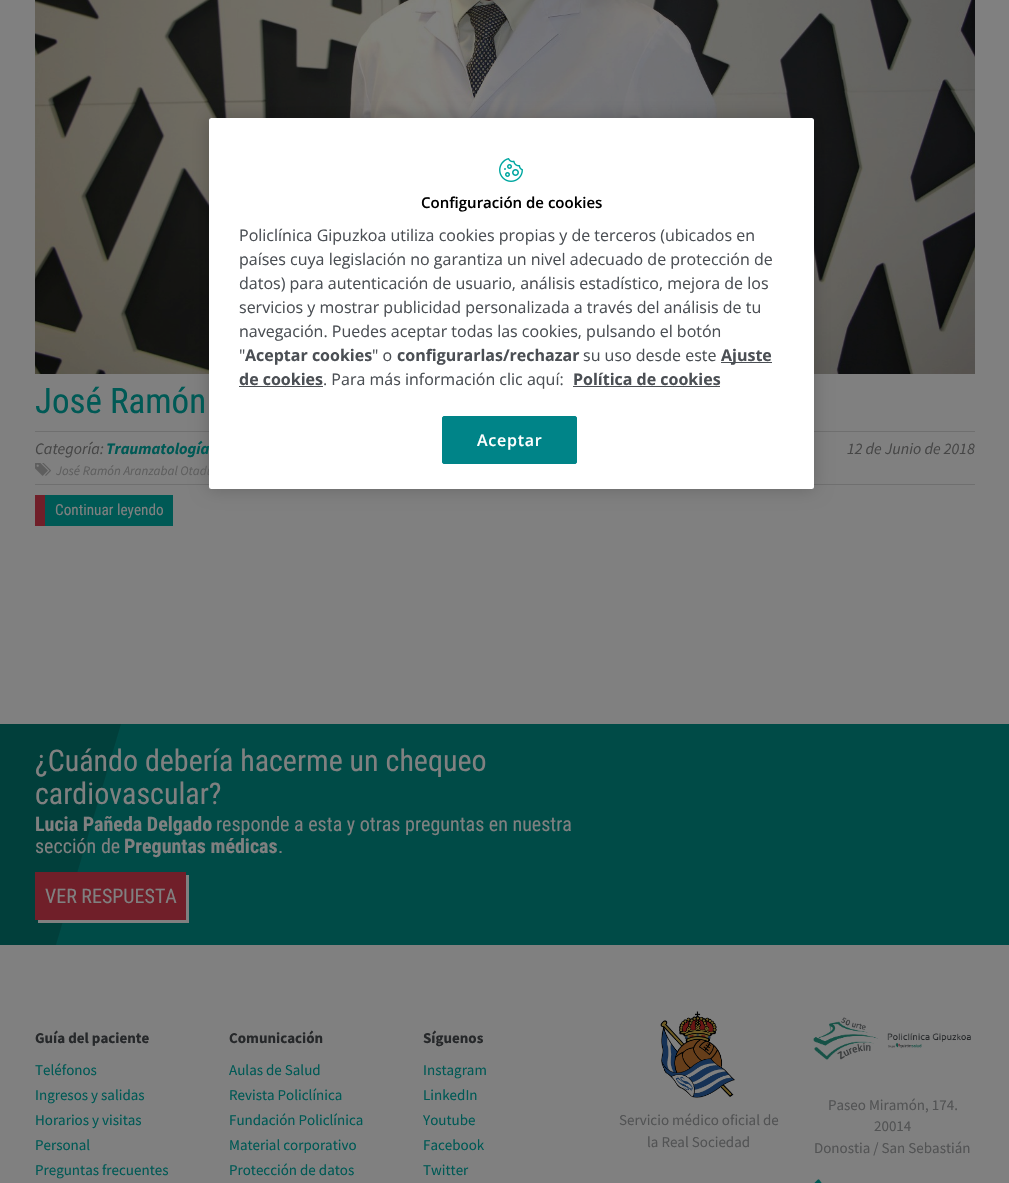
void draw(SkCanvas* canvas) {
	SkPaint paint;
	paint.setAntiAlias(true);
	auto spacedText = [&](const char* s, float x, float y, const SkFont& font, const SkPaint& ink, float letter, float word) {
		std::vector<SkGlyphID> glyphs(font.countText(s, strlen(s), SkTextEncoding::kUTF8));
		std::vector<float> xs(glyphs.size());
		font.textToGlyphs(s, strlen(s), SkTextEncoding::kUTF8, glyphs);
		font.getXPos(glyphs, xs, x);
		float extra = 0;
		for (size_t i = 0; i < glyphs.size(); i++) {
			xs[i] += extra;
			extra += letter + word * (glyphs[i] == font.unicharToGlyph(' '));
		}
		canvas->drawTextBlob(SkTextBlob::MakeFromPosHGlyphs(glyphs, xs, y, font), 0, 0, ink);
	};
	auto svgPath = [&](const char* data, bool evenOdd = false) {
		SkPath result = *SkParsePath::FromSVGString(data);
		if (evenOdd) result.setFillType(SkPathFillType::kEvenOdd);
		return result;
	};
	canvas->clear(0xff808080);
	canvas->drawImageRect(SkImages::DeferredFromEncodedData(SkData::MakeFromFileName("img2.png")), SkRect::MakeXYWH(35, 0, 940, 374), SkSamplingOptions());
	paint.setColor(0xff6f6f6f);
	canvas->drawRect(SkRect::MakeXYWH(35, 431, 940, 1), paint);
	canvas->drawRect(SkRect::MakeXYWH(35, 484, 940, 1), paint);
	paint.setColor(0x33000000);
	paint.setMaskFilter(SkMaskFilter::MakeBlur(kNormal_SkBlurStyle, 9));
	canvas->drawRoundRect(SkRect::MakeXYWH(209, 118, 605, 371), 2.5, 2.5, paint);
	paint.setMaskFilter(nullptr);
	SkFont f1(fontMgr->matchFamilyStyle("Source Sans Pro", SkFontStyle::BoldItalic()), 16);
	f1.setSubpixel(true);
	paint.setColor(0xff005955);
	canvas->drawString("Traumatología", 106, 454, f1, paint);
	SkFont f2(fontMgr->matchFamilyStyle("Source Sans Pro", SkFontStyle::Italic()), 13);
	f2.setSubpixel(true);
	paint.setColor(0xff5e5e5e);
	canvas->drawString("José Ramón Aranzabal Otadu", 56, 475, f2, paint);
	paint.setColor(0xffffffff);
	canvas->drawRoundRect(SkRect::MakeXYWH(209, 118, 605, 371), 2.5, 2.5, paint);
	canvas->drawImageRect(SkImages::DeferredFromEncodedData(SkData::MakeFromFileName("img1.png")), SkRect::MakeXYWH(499, 158, 24, 24), SkSamplingOptions());
	SkFont f3(fontMgr->matchFamilyStyle("Open Sans", SkFontStyle(600, SkFontStyle::kNormal_Width, SkFontStyle::kUpright_Slant)), 15);
	f3.setSubpixel(true);
	paint.setColor(0xff000000);
	canvas->drawString("Configuración de cookies", 421, 208, f3, paint);
	SkFont f4(fontMgr->matchFamilyStyle("Open Sans", SkFontStyle::Normal()), 16);
	f4.setSubpixel(true);
	paint.setColor(0xff4b4f54);
	canvas->drawString("Policlínica Gipuzkoa utiliza cookies propias y de terceros (ubicados en", 239, 241, f4, paint);
	canvas->drawString("países cuya legislación no garantiza un nivel adecuado de protección de", 239, 265, f4, paint);
	canvas->drawString("datos) para autenticación de usuario, análisis estadístico, mejora de los", 239, 289, f4, paint);
	canvas->drawString("servicios y mostrar publicidad personalizada a través del análisis de tu", 239, 313, f4, paint);
	canvas->drawString("navegación. Puedes aceptar todas las cookies, pulsando el botón", 239, 337, f4, paint);
	canvas->drawString("\"", 239, 361, f4, paint);
	SkFont f5(fontMgr->matchFamilyStyle("Open Sans", SkFontStyle::Bold()), 16);
	f5.setSubpixel(true);
	canvas->drawString("Aceptar cookies", 245, 361, f5, paint);
	canvas->drawString("\" o", 372, 361, f4, paint);
	canvas->drawString("configurarlas/rechazar", 397, 361, f5, paint);
	canvas->drawString("su uso desde este", 583, 361, f4, paint);
	canvas->drawRect(SkRect::MakeXYWH(721, 362, 51, 1), paint);
	canvas->drawString("Ajuste", 721, 361, f5, paint);
	canvas->drawString("de cookies", 239, 385, f5, paint);
	canvas->drawRect(SkRect::MakeXYWH(239, 386, 84, 1), paint);
	canvas->drawString(". Para más información clic aquí:", 323, 385, f4, paint);
	canvas->drawString("Política de cookies", 573, 385, f5, paint);
	canvas->drawRect(SkRect::MakeXYWH(573, 386, 147, 1), paint);
	paint.setColor(0xff008488);
	canvas->drawRoundRect(SkRect::MakeXYWH(442.5, 416.5, 134, 47), 1.5, 1.5, paint);
	paint.setStroke(true);
	paint.setStrokeWidth(1);
	canvas->drawRoundRect(SkRect::MakeXYWH(442.5, 416.5, 134, 47), 1.5, 1.5, paint);
	SkFont f6(fontMgr->matchFamilyStyle("Open Sans", SkFontStyle(600, SkFontStyle::kNormal_Width, SkFontStyle::kUpright_Slant)), 16);
	f6.setSubpixel(true);
	paint.setStroke(false);
	paint.setColor(0xffffffff);
	spacedText("Aceptar", 477, 446, f6, paint, 0.75, 0);
	SkFont f7(fontMgr->matchFamilyStyle("Roboto Condensed", SkFontStyle::Normal()), 35);
	f7.setSubpixel(true);
	paint.setColor(0xff005955);
	canvas->drawString("José Ramón", 35, 413, f7, paint);
	SkFont f8(fontMgr->matchFamilyStyle("Source Sans Pro", SkFontStyle::Italic()), 16);
	f8.setSubpixel(true);
	paint.setColor(0xff464646);
	canvas->drawString("Categoría:", 35, 454, f8, paint);
	canvas->drawString("12 de Junio de 2018", 847, 454, f8, paint);
	canvas->drawImageRect(SkImages::DeferredFromEncodedData(SkData::MakeFromFileName("img3.png")), SkRect::MakeXYWH(35, 463, 16, 13), SkSamplingOptions());
	paint.setColor(0xff005955);
	canvas->drawRect(SkRect::MakeXYWH(45, 495, 128, 31), paint);
	paint.setColor(0xff701f29);
	canvas->drawRect(SkRect::MakeXYWH(35, 495, 10, 31), paint);
	SkFont f9(fontMgr->matchFamilyStyle("Roboto Condensed", SkFontStyle::Normal()), 15.25);
	f9.setSubpixel(true);
	paint.setColor(0xff808080);
	canvas->drawString("Continuar leyendo", 55, 515, f9, paint);
	paint.setColor(0xff004b47);
	canvas->drawRect(SkRect::MakeXYWH(56, 724, 953, 221), paint);
	paint.setColor(0xff013f3b);
	canvas->drawPath(svgPath("M0 724V945H56L121 724Z"), paint);
	SkFont f10(fontMgr->matchFamilyStyle("Roboto Condensed", SkFontStyle::Normal()), 30);
	f10.setSubpixel(true);
	paint.setColor(0xff808080);
	canvas->drawString("¿Cuándo debería hacerme un chequeo", 35, 771, f10, paint);
	canvas->drawString("cardiovascular?", 35, 804, f10, paint);
	SkFont f11(fontMgr->matchFamilyStyle("Roboto Condensed", SkFontStyle::Bold()), 20);
	f11.setSubpixel(true);
	canvas->drawString("Lucia Pañeda Delgado", 35, 831, f11, paint);
	SkFont f12(fontMgr->matchFamilyStyle("Roboto Condensed", SkFontStyle::Normal()), 20);
	f12.setSubpixel(true);
	canvas->drawString("responde a esta y otras preguntas en nuestra", 216, 831, f12, paint);
	canvas->drawString("sección de", 35, 853, f12, paint);
	canvas->drawString("Preguntas médicas", 124, 853, f11, paint);
	canvas->drawString(".", 278, 853, f12, paint);
	canvas->drawPath(svgPath("M38 920V923H189V875H186V920Z"), paint);
	paint.setColor(0xff701f29);
	canvas->drawRect(SkRect::MakeXYWH(35, 872, 151, 48), paint);
	paint.setColor(0xff808080);
	canvas->drawString("VER RESPUESTA", 45, 903, f12, paint);
	SkFont f13(fontMgr->matchFamilyStyle("Source Sans Pro", SkFontStyle::Bold()), 15);
	f13.setSubpixel(true);
	paint.setColor(0xff26282a);
	canvas->drawString("Guía del paciente", 35, 1043, f13, paint);
	SkFont f14(fontMgr->matchFamilyStyle("Source Sans Pro", SkFontStyle::Normal()), 15);
	f14.setSubpixel(true);
	paint.setColor(0xff005955);
	canvas->drawString("Teléfonos", 35, 1075, f14, paint);
	canvas->drawString("Ingresos y salidas", 35, 1100, f14, paint);
	canvas->drawString("Horarios y visitas", 35, 1125, f14, paint);
	canvas->drawString("Personal", 35, 1150, f14, paint);
	canvas->drawString("Preguntas frecuentes", 35, 1175, f14, paint);
	paint.setColor(0xff26282a);
	canvas->drawString("Comunicación", 229, 1043, f13, paint);
	paint.setColor(0xff005955);
	canvas->drawString("Aulas de Salud", 229, 1075, f14, paint);
	canvas->drawString("Revista Policlínica", 229, 1100, f14, paint);
	canvas->drawString("Fundación Policlínica", 229, 1125, f14, paint);
	canvas->drawString("Material corporativo", 229, 1150, f14, paint);
	canvas->drawString("Protección de datos", 229, 1175, f14, paint);
	paint.setColor(0xff26282a);
	canvas->drawString("Síguenos", 423, 1043, f13, paint);
	paint.setColor(0xff005955);
	canvas->drawString("Instagram", 423, 1075, f14, paint);
	canvas->drawString("LinkedIn", 423, 1100, f14, paint);
	canvas->drawString("Youtube", 423, 1125, f14, paint);
	canvas->drawString("Facebook", 423, 1150, f14, paint);
	canvas->drawString("Twitter", 423, 1175, f14, paint);
	canvas->drawImageRect(SkImages::DeferredFromEncodedData(SkData::MakeFromFileName("img4.png")), SkRect::MakeXYWH(660, 1011, 75, 87), SkSamplingOptions());
	paint.setColor(0xff525354);
	canvas->drawString("Servicio médico oficial de", 619, 1125, f14, paint);
	canvas->drawString("la Real Sociedad", 647, 1147, f14, paint);
	canvas->drawImageRect(SkImages::DeferredFromEncodedData(SkData::MakeFromFileName("img5.png")), SkRect::MakeXYWH(813, 1017, 158, 43), SkSamplingOptions());
	canvas->drawString("Paseo Miramón, 174.", 828, 1110, f14, paint);
	canvas->drawString("20014", 874, 1131, f14, paint);
	canvas->drawString("Donostia / San Sebastián", 814, 1153, f14, paint);
	canvas->drawImageRect(SkImages::DeferredFromEncodedData(SkData::MakeFromFileName("img6.png")), SkRect::MakeXYWH(814, 1179, 8, 4), SkSamplingOptions());
}
